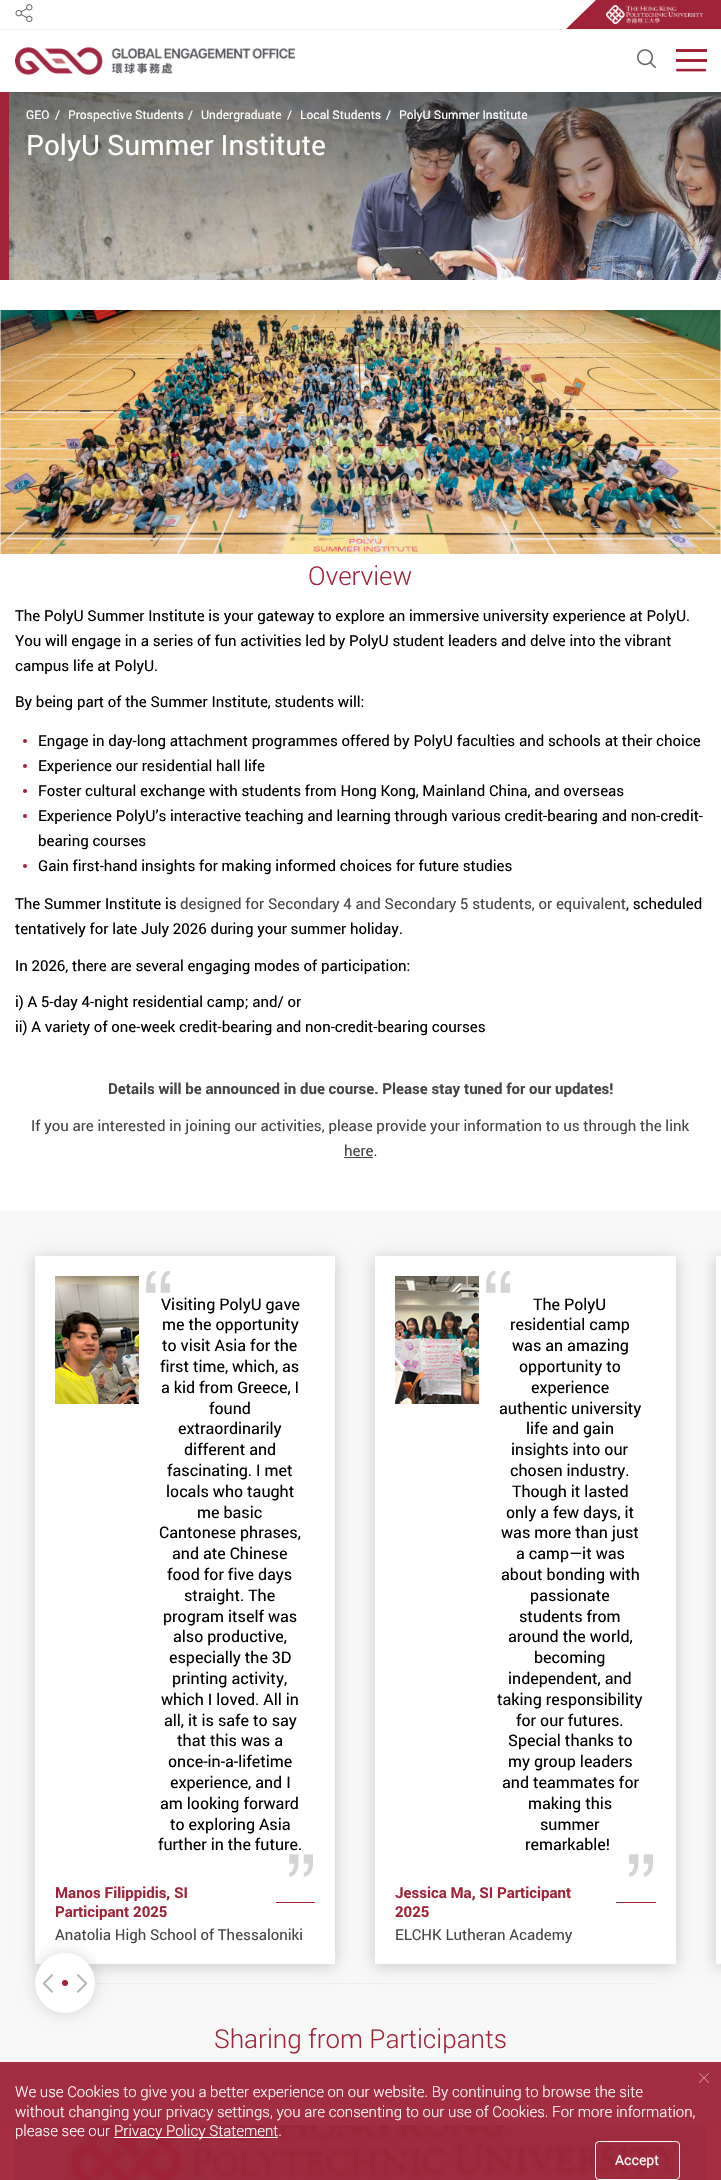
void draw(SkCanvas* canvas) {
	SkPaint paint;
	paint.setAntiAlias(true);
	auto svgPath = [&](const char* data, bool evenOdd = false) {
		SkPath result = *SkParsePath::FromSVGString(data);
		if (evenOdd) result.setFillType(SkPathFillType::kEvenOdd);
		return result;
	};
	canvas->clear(0xffffffff);
	paint.setColor(0xffa52e41);
	canvas->drawRect(SkRect::MakeXYWH(0, 2125, 721, 55), paint);
	paint.setColor(0xfff1f1f1);
	canvas->drawRect(SkRect::MakeXYWH(0, 29, 721, 1), paint);
	canvas->drawImageRect(SkImages::DeferredFromEncodedData(SkData::MakeFromFileName("img1.png")), SkRect::MakeXYWH(15, 4, 18, 19), SkSamplingOptions());
	paint.setColor(0xffa02337);
	canvas->drawPath(svgPath("M596 0H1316L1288 29H566Z"), paint);
	canvas->drawImageRect(SkImages::DeferredFromEncodedData(SkData::MakeFromFileName("img2.png")), SkRect::MakeXYWH(606, 5, 97, 19), SkSamplingOptions());
	canvas->drawImageRect(SkImages::DeferredFromEncodedData(SkData::MakeFromFileName("img3.png")), SkRect::MakeXYWH(637, 49, 19, 20), SkSamplingOptions());
	canvas->drawRect(SkRect::MakeXYWH(676, 49, 31, 3), paint);
	canvas->drawRect(SkRect::MakeXYWH(676, 59, 31, 3), paint);
	canvas->drawImageRect(SkImages::DeferredFromEncodedData(SkData::MakeFromFileName("img4.png")), SkRect::MakeXYWH(676, 68, 31, 4), SkSamplingOptions());
	canvas->drawImageRect(SkImages::DeferredFromEncodedData(SkData::MakeFromFileName("img5.png")), SkRect::MakeXYWH(15, 47, 280, 28), SkSamplingOptions());
	canvas->drawImageRect(SkImages::DeferredFromEncodedData(SkData::MakeFromFileName("img6.png")), SkRect::MakeXYWH(9, 92, 712, 188), SkSamplingOptions());
	canvas->drawRect(SkRect::MakeXYWH(0, 92, 9, 188), paint);
	SkFont f1(fontMgr->matchFamilyStyle("Roboto", SkFontStyle::Normal()), 12);
	f1.setSubpixel(true);
	paint.setColor(0xffffffff);
	canvas->drawString("GEO", 26, 119, f1, paint);
	canvas->drawString("/", 55, 119, f1, paint);
	canvas->drawString("Prospective Students", 68, 119, f1, paint);
	canvas->drawString("/", 188, 119, f1, paint);
	canvas->drawString("Undergraduate", 201, 119, f1, paint);
	canvas->drawString("/", 287, 119, f1, paint);
	canvas->drawString("Local Students", 300, 119, f1, paint);
	canvas->drawString("/", 386, 119, f1, paint);
	canvas->drawString("PolyU Summer Institute", 399, 119, f1, paint);
	SkFont f2(fontMgr->matchFamilyStyle("Roboto", SkFontStyle::Normal()), 28);
	f2.setSubpixel(true);
	canvas->drawString("PolyU Summer Institute", 26, 155, f2, paint);
	canvas->drawImageRect(SkImages::DeferredFromEncodedData(SkData::MakeFromFileName("img7.png")), SkRect::MakeXYWH(0, 310, 721, 244), SkSamplingOptions());
	SkFont f3(fontMgr->matchFamilyStyle("Roboto", SkFontStyle(300, SkFontStyle::kNormal_Width, SkFontStyle::kUpright_Slant)), 26);
	f3.setSubpixel(true);
	paint.setColor(0xffa02337);
	canvas->drawString("Overview", 308, 585, f3, paint);
	SkFont f4(fontMgr->matchFamilyStyle("Roboto", SkFontStyle::Normal()), 15);
	f4.setSubpixel(true);
	paint.setColor(0xff000000);
	canvas->drawString("The PolyU Summer Institute is your gateway to explore an immersive university experience at PolyU.", 15, 621, f4, paint);
	canvas->drawString("You will engage in a series of fun activities led by PolyU student leaders and delve into the vibrant", 15, 646, f4, paint);
	canvas->drawString("campus life at PolyU.", 15, 671, f4, paint);
	canvas->drawString("By being part of the Summer Institute, students will:", 15, 707, f4, paint);
	paint.setColor(0xffa02337);
	canvas->drawCircle(25, 741, 2, paint);
	paint.setColor(0xff000000);
	canvas->drawString("Engage in day-long attachment programmes offered by PolyU faculties and schools at their choice", 38, 746, f4, paint);
	paint.setColor(0xffa02337);
	canvas->drawCircle(25, 766, 2, paint);
	paint.setColor(0xff000000);
	canvas->drawString("Experience our residential hall life", 38, 771, f4, paint);
	paint.setColor(0xffa02337);
	canvas->drawCircle(25, 791, 2, paint);
	paint.setColor(0xff000000);
	canvas->drawString("Foster cultural exchange with students from Hong Kong, Mainland China, and overseas", 38, 796, f4, paint);
	paint.setColor(0xffa02337);
	canvas->drawCircle(25, 816, 2, paint);
	paint.setColor(0xff000000);
	canvas->drawString("Experience PolyU’s interactive teaching and learning through various credit-bearing and non-credit-", 38, 821, f4, paint);
	canvas->drawString("bearing courses", 38, 846, f4, paint);
	paint.setColor(0xffa02337);
	canvas->drawCircle(25, 866, 2, paint);
	paint.setColor(0xff000000);
	canvas->drawString("Gain first-hand insights for making informed choices for future studies", 38, 871, f4, paint);
	canvas->drawString("The Summer Institute is", 15, 909, f4, paint);
	paint.setColor(0xff454545);
	canvas->drawString("designed for Secondary 4 and Secondary 5 students, or equivalent", 180, 909, f4, paint);
	paint.setColor(0xff000000);
	canvas->drawString(", scheduled", 626, 909, f4, paint);
	canvas->drawString("tentatively for late July 2026 during your summer holiday.", 15, 934, f4, paint);
	canvas->drawString("In 2026, there are several engaging modes of participation:", 15, 971, f4, paint);
	canvas->drawString("i) A 5-day 4-night residential camp; and/ or", 15, 1007, f4, paint);
	canvas->drawString("ii) A variety of one-week credit-bearing and non-credit-bearing courses", 15, 1032, f4, paint);
	SkFont f5(fontMgr->matchFamilyStyle("Roboto", SkFontStyle::Bold()), 15);
	f5.setSubpixel(true);
	paint.setColor(0xff454545);
	canvas->drawString("Details will be announced in due course. Please stay tuned for our updates!", 108, 1094, f5, paint);
	canvas->drawString("If you are interested in joining our activities, please provide your information to us through the link", 31, 1131, f4, paint);
	canvas->drawString("here.", 344, 1156, f4, paint);
	canvas->drawRect(SkRect::MakeXYWH(344, 1157, 29, 1), paint);
	paint.setColor(0xfff8f8f8);
	canvas->drawRect(SkRect::MakeXYWH(0, 1211, 721, 851), paint);
	paint.setColor(0xffa42e41);
	canvas->drawRect(SkRect::MakeXYWH(0, 2062, 721, 63), paint);
	paint.setColor(0x33000000);
	paint.setMaskFilter(SkMaskFilter::MakeBlur(kNormal_SkBlurStyle, 7.5));
	canvas->drawRect(SkRect::MakeXYWH(35, 1258, 300, 708), paint);
	paint.setMaskFilter(nullptr);
	paint.setColor(0xffffffff);
	canvas->drawRect(SkRect::MakeXYWH(35, 1256, 300, 708), paint);
	canvas->drawImageRect(SkImages::DeferredFromEncodedData(SkData::MakeFromFileName("img8.png")), SkRect::MakeXYWH(55, 1276, 84, 128), SkSamplingOptions());
	canvas->drawImageRect(SkImages::DeferredFromEncodedData(SkData::MakeFromFileName("img9.png")), SkRect::MakeXYWH(146, 1271, 24, 22), SkSamplingOptions());
	SkFont f6(fontMgr->matchFamilyStyle("Roboto", SkFontStyle::Normal()), 16);
	f6.setSubpixel(true);
	paint.setColor(0xff000000);
	canvas->drawString("Visiting PolyU gave", 161, 1310, f6, paint);
	canvas->drawString("me the opportunity", 162, 1330, f6, paint);
	canvas->drawString("to visit Asia for the", 162, 1351, f6, paint);
	canvas->drawString("first time, which, as", 160, 1372, f6, paint);
	canvas->drawString("a kid from Greece, I", 161, 1393, f6, paint);
	canvas->drawString("found", 209, 1414, f6, paint);
	canvas->drawString("extraordinarily", 178, 1434, f6, paint);
	canvas->drawString("different and", 184, 1455, f6, paint);
	canvas->drawString("fascinating. I met", 167, 1476, f6, paint);
	canvas->drawString("locals who taught", 166, 1497, f6, paint);
	canvas->drawString("me basic", 197, 1518, f6, paint);
	canvas->drawString("Cantonese phrases,", 159, 1538, f6, paint);
	canvas->drawString("and ate Chinese", 172, 1559, f6, paint);
	canvas->drawString("food for five days", 167, 1580, f6, paint);
	canvas->drawString("straight. The", 184, 1601, f6, paint);
	canvas->drawString("program itself was", 163, 1622, f6, paint);
	canvas->drawString("also productive,", 173, 1642, f6, paint);
	canvas->drawString("especially the 3D", 169, 1663, f6, paint);
	canvas->drawString("printing activity,", 172, 1684, f6, paint);
	canvas->drawString("which I loved. All in", 161, 1705, f6, paint);
	canvas->drawString("all, it is safe to say", 164, 1726, f6, paint);
	canvas->drawString("that this was a", 177, 1746, f6, paint);
	canvas->drawString("once-in-a-lifetime", 168, 1767, f6, paint);
	canvas->drawString("experience, and I", 170, 1788, f6, paint);
	canvas->drawString("am looking forward", 160, 1809, f6, paint);
	canvas->drawString("to exploring Asia", 170, 1830, f6, paint);
	canvas->drawString("further in the future.", 158, 1850, f6, paint);
	canvas->drawImageRect(SkImages::DeferredFromEncodedData(SkData::MakeFromFileName("img10.png")), SkRect::MakeXYWH(289, 1854, 24, 23), SkSamplingOptions());
	paint.setColor(0xffa02337);
	canvas->drawString("Manos Filippidis, SI", 55, 1898, f5, paint);
	canvas->drawRect(SkRect::MakeXYWH(276, 1902, 39, 1), paint);
	canvas->drawString("Participant 2025", 55, 1917, f5, paint);
	paint.setColor(0xff454545);
	canvas->drawString("Anatolia High School of Thessaloniki", 55, 1940, f4, paint);
	paint.setColor(0x33000000);
	paint.setMaskFilter(SkMaskFilter::MakeBlur(kNormal_SkBlurStyle, 7.5));
	canvas->drawRect(SkRect::MakeXYWH(375, 1258, 301, 708), paint);
	paint.setMaskFilter(nullptr);
	paint.setColor(0xffffffff);
	canvas->drawRect(SkRect::MakeXYWH(375, 1256, 301, 708), paint);
	canvas->drawImageRect(SkImages::DeferredFromEncodedData(SkData::MakeFromFileName("img11.png")), SkRect::MakeXYWH(395, 1276, 84, 128), SkSamplingOptions());
	canvas->drawImageRect(SkImages::DeferredFromEncodedData(SkData::MakeFromFileName("img9.png")), SkRect::MakeXYWH(486, 1271, 24, 22), SkSamplingOptions());
	paint.setColor(0xff000000);
	canvas->drawString("The PolyU", 533, 1310, f6, paint);
	canvas->drawString("residential camp", 510, 1330, f6, paint);
	canvas->drawString("was an amazing", 512, 1351, f6, paint);
	canvas->drawString("opportunity to", 519, 1372, f6, paint);
	canvas->drawString("experience", 531, 1393, f6, paint);
	canvas->drawString("authentic university", 499, 1414, f6, paint);
	canvas->drawString("life and gain", 526, 1434, f6, paint);
	canvas->drawString("insights into our", 511, 1455, f6, paint);
	canvas->drawString("chosen industry.", 510, 1476, f6, paint);
	canvas->drawString("Though it lasted", 512, 1497, f6, paint);
	canvas->drawString("only a few days, it", 506, 1518, f6, paint);
	canvas->drawString("was more than just", 501, 1538, f6, paint);
	canvas->drawString("a camp—it was", 516, 1559, f6, paint);
	canvas->drawString("about bonding with", 501, 1580, f6, paint);
	canvas->drawString("passionate", 530, 1601, f6, paint);
	canvas->drawString("students from", 519, 1622, f6, paint);
	canvas->drawString("around the world,", 508, 1642, f6, paint);
	canvas->drawString("becoming", 534, 1663, f6, paint);
	canvas->drawString("independent, and", 508, 1684, f6, paint);
	canvas->drawString("taking responsibility", 497, 1705, f6, paint);
	canvas->drawString("for our futures.", 516, 1726, f6, paint);
	canvas->drawString("Special thanks to", 508, 1746, f6, paint);
	canvas->drawString("my group leaders", 508, 1767, f6, paint);
	canvas->drawString("and teammates for", 502, 1788, f6, paint);
	canvas->drawString("making this", 528, 1809, f6, paint);
	canvas->drawString("summer", 540, 1830, f6, paint);
	canvas->drawString("remarkable!", 525, 1850, f6, paint);
	canvas->drawImageRect(SkImages::DeferredFromEncodedData(SkData::MakeFromFileName("img10.png")), SkRect::MakeXYWH(629, 1854, 24, 23), SkSamplingOptions());
	paint.setColor(0xffa02337);
	canvas->drawString("Jessica Ma, SI Participant", 395, 1898, f5, paint);
	canvas->drawRect(SkRect::MakeXYWH(616, 1902, 40, 1), paint);
	canvas->drawString("2025", 395, 1917, f5, paint);
	paint.setColor(0xff454545);
	canvas->drawString("ELCHK Lutheran Academy", 395, 1940, f4, paint);
	paint.setColor(0x33000000);
	paint.setMaskFilter(SkMaskFilter::MakeBlur(kNormal_SkBlurStyle, 7.5));
	canvas->drawRect(SkRect::MakeXYWH(716, 1258, 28, 708), paint);
	paint.setMaskFilter(nullptr);
	paint.setColor(0xffffffff);
	canvas->drawRect(SkRect::MakeXYWH(716, 1256, 5, 708), paint);
	paint.setColor(0xffededed);
	canvas->drawRect(SkRect::MakeXYWH(94, 1983, 562, 1), paint);
	paint.setColor(0x26000000);
	paint.setMaskFilter(SkMaskFilter::MakeBlur(kNormal_SkBlurStyle, 7.5));
	canvas->drawRoundRect(SkRect::MakeXYWH(35, 1953, 60, 60), 30, 30, paint);
	paint.setMaskFilter(nullptr);
	paint.setColor(0xffffffff);
	canvas->drawCircle(65, 1983, 30, paint);
	canvas->drawImageRect(SkImages::DeferredFromEncodedData(SkData::MakeFromFileName("img12.png")), SkRect::MakeXYWH(42, 1974, 46, 19), SkSamplingOptions());
	paint.setColor(0xffa02337);
	canvas->drawCircle(65, 1983, 3, paint);
	canvas->drawString("Sharing from Participants", 214, 2048, f3, paint);
	canvas->drawImageRect(SkImages::DeferredFromEncodedData(SkData::MakeFromFileName("img13.png")), SkRect::MakeXYWH(15, 2125, 691, 55), SkSamplingOptions());
	canvas->drawImageRect(SkImages::DeferredFromEncodedData(SkData::MakeFromFileName("img14.png")), SkRect::MakeXYWH(699, 2073, 10, 10), SkSamplingOptions());
	SkFont f7(fontMgr->matchFamilyStyle("Roboto", SkFontStyle(300, SkFontStyle::kNormal_Width, SkFontStyle::kUpright_Slant)), 15);
	f7.setSubpixel(true);
	paint.setColor(0xffffffff);
	canvas->drawString("We use Cookies to give you a better experience on our website. By continuing to browse the site", 15, 2097, f7, paint);
	canvas->drawString("without changing your privacy settings, you are consenting to our use of Cookies. For more information,", 15, 2117, f7, paint);
	canvas->drawString("please see our", 15, 2136, f7, paint);
	canvas->drawRect(SkRect::MakeXYWH(114, 2137, 164, 1), paint);
	canvas->drawString("Privacy Policy Statement.", 114, 2136, f7, paint);
	paint.setStroke(true);
	paint.setStrokeWidth(1);
	canvas->drawRoundRect(SkRect::MakeXYWH(595.5, 2141.5, 84, 38), 3.5, 3.5, paint);
	SkFont f8(fontMgr->matchFamilyStyle("Roboto", SkFontStyle::Normal()), 14);
	f8.setSubpixel(true);
	paint.setStroke(false);
	canvas->drawString("Accept", 615, 2165, f8, paint);
}
